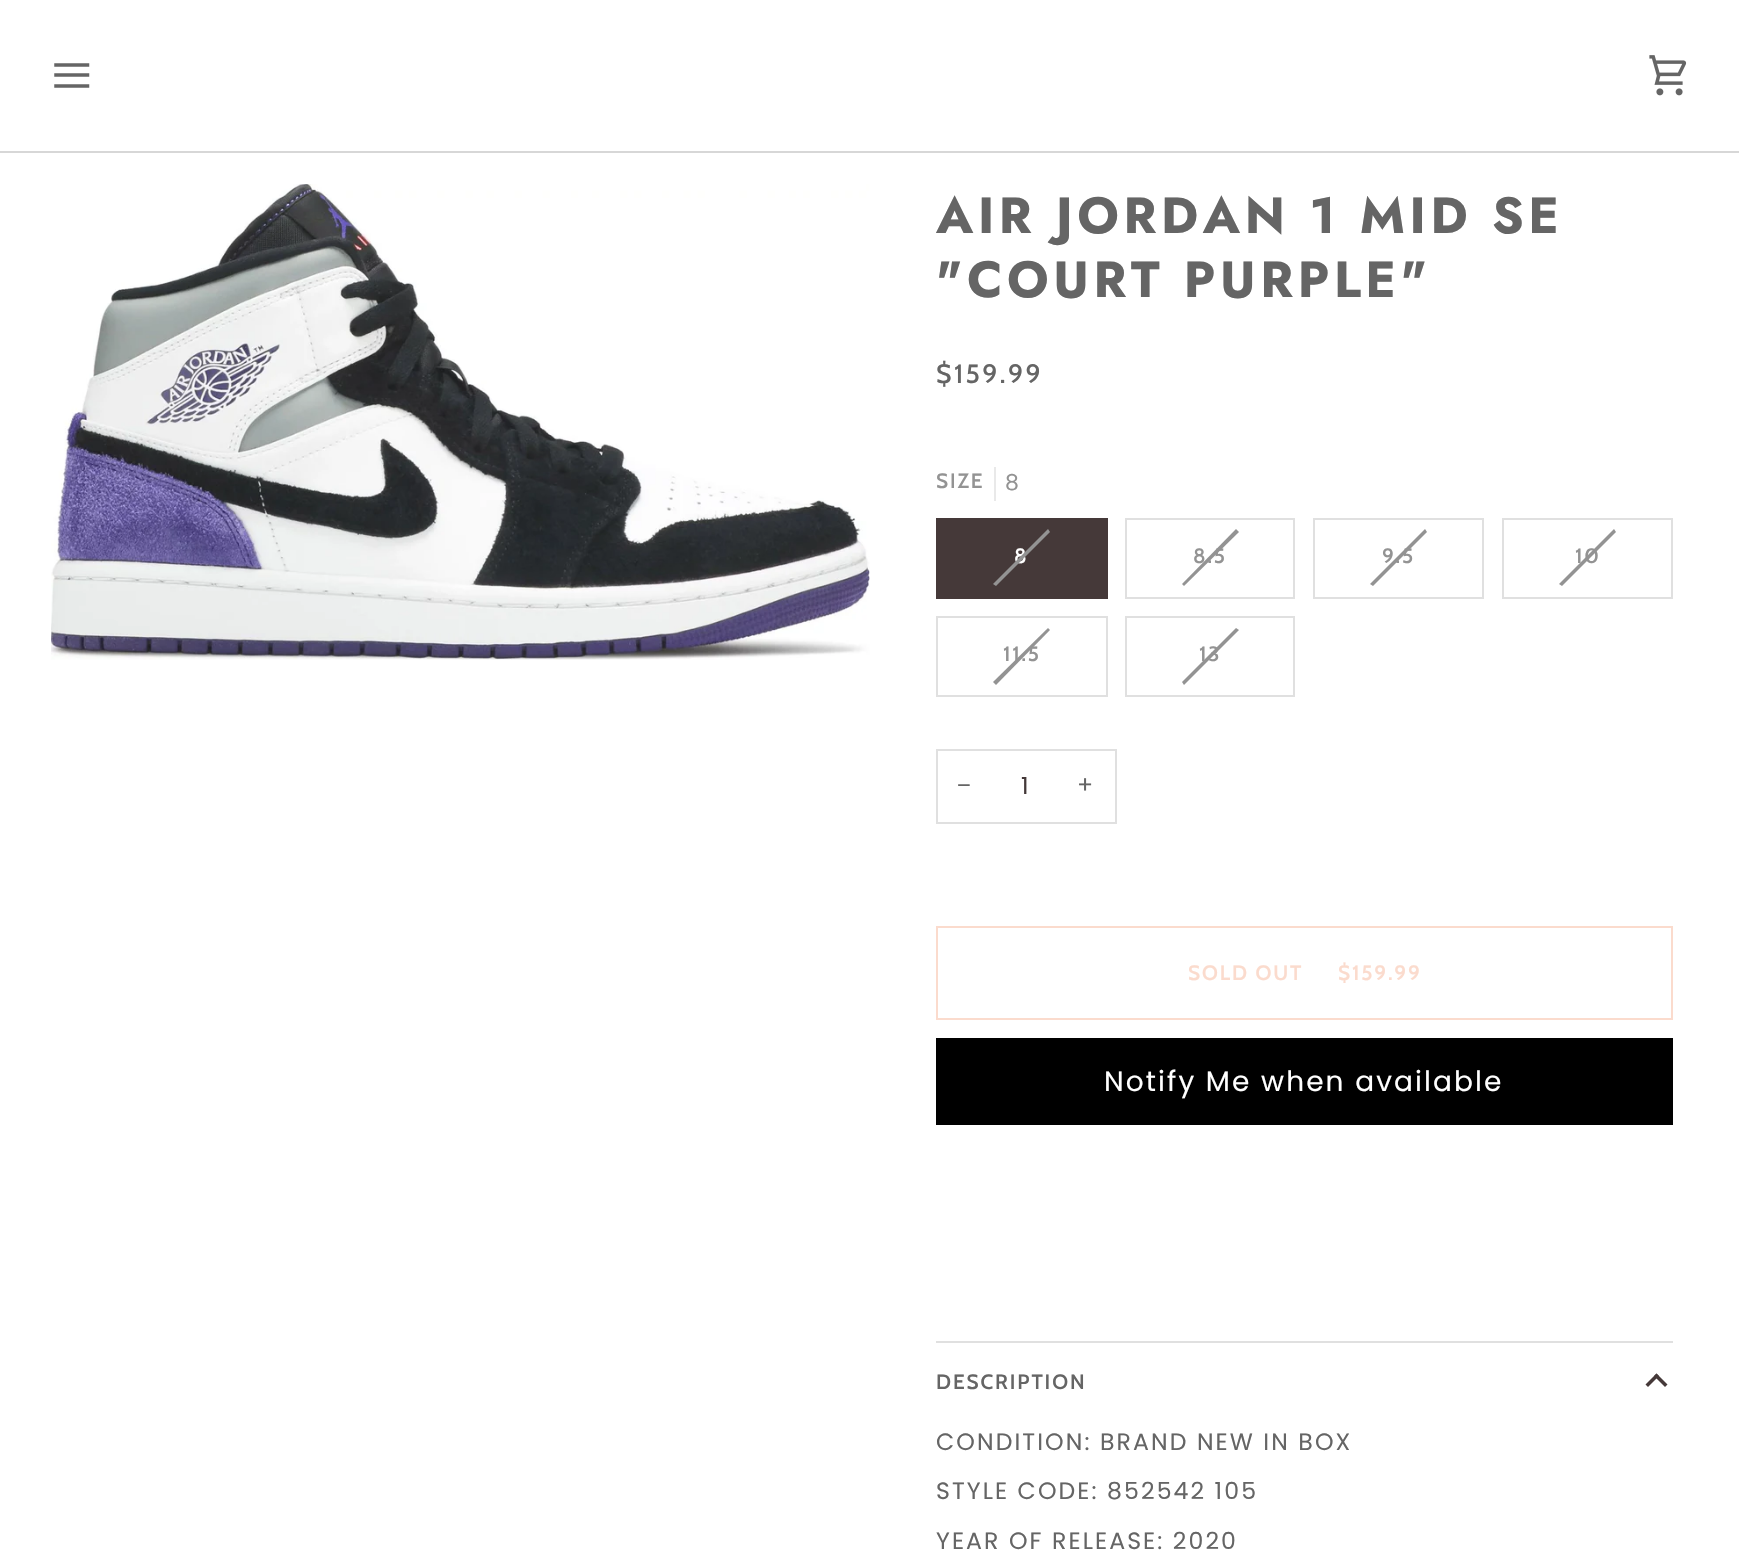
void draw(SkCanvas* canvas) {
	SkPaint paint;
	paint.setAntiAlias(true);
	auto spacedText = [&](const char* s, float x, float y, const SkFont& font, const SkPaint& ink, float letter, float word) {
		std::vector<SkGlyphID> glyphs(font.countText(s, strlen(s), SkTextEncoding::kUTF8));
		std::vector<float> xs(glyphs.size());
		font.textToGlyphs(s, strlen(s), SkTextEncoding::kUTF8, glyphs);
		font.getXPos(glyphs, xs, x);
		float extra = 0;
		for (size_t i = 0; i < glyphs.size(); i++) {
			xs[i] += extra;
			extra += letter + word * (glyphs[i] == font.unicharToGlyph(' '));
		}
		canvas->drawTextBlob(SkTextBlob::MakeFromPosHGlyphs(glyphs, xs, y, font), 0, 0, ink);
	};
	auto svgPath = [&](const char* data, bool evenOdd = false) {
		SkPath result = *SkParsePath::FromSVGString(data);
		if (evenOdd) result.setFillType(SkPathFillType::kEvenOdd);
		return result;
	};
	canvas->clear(0xffffffff);
	paint.setColor(0xffd7d7d7);
	canvas->drawRect(SkRect::MakeXYWH(0, 151, 1739, 2), paint);
	paint.setStroke(true);
	paint.setStrokeWidth(3.5);
	paint.setStrokeCap(SkPaint::kSquare_Cap);
	paint.setColor(0xff656565);
	canvas->drawPath(svgPath("M87.5 65H56M87.5 75H56M87.5 86H56"), paint);
	canvas->drawImageRect(SkImages::DeferredFromEncodedData(SkData::MakeFromFileName("img1.png")), SkRect::MakeXYWH(1649, 55, 38, 41), SkSamplingOptions());
	canvas->drawImageRect(SkImages::DeferredFromEncodedData(SkData::MakeFromFileName("img2.png")), SkRect::MakeXYWH(51, 184, 819, 476), SkSamplingOptions());
	SkFont f1(fontMgr->matchFamilyStyle("Jost", SkFontStyle::Bold()), 50.75);
	f1.setSubpixel(true);
	paint.setStroke(false);
	spacedText("AIR JORDAN 1 MID SE", 936, 233, f1, paint, 4.6, 0);
	spacedText("\"COURT PURPLE\"", 936, 297, f1, paint, 4.6, 0);
	SkFont f2(fontMgr->matchFamilyStyle("Cabin", SkFontStyle(500, SkFontStyle::kNormal_Width, SkFontStyle::kUpright_Slant)), 26.5);
	f2.setSubpixel(true);
	spacedText("$159.99", 936, 383, f2, paint, 2.5, 0);
	SkFont f3(fontMgr->matchFamilyStyle("Cabin", SkFontStyle(600, SkFontStyle::kNormal_Width, SkFontStyle::kUpright_Slant)), 20.75);
	f3.setSubpixel(true);
	paint.setColor(0xff939393);
	spacedText("SIZE", 936, 488, f3, paint, 1.9, 0);
	paint.setColor(0xffe9e9e9);
	canvas->drawRect(SkRect::MakeXYWH(994, 467, 2, 34), paint);
	SkFont f4(fontMgr->matchFamilyStyle("Poppins", SkFontStyle::Normal()), 22);
	f4.setSubpixel(true);
	paint.setColor(0xff939393);
	spacedText("8", 1005, 490, f4, paint, 2.1, 0);
	paint.setColor(0xff453939);
	canvas->drawRect(SkRect::MakeXYWH(936, 518, 172, 81), paint);
	paint.setColor(0xffffffff);
	spacedText("8", 1014, 563, f3, paint, 1.9, 0);
	paint.setColor(0xff939393);
	canvas->drawPath(svgPath("M1048 529L1050 532L996 586L993 584Z"), paint);
	paint.setStroke(true);
	paint.setStrokeWidth(2);
	paint.setStrokeCap(SkPaint::kButt_Cap);
	paint.setColor(0xffe0e0e0);
	canvas->drawRect(SkRect::MakeXYWH(1126, 519, 168, 79), paint);
	paint.setStroke(false);
	paint.setColor(0xff939393);
	canvas->drawPath(svgPath("M1236 529L1239 532L1184 586L1182 584Z"), paint);
	spacedText("8.5", 1193, 563, f3, paint, 1.9, 0);
	paint.setStroke(true);
	paint.setColor(0xffe0e0e0);
	canvas->drawRect(SkRect::MakeXYWH(1314, 519, 169, 79), paint);
	paint.setStroke(false);
	paint.setColor(0xff939393);
	canvas->drawPath(svgPath("M1425 529L1427 532L1373 586L1370 584Z"), paint);
	spacedText("9.5", 1382, 563, f3, paint, 1.9, 0);
	paint.setStroke(true);
	paint.setColor(0xffe0e0e0);
	canvas->drawRect(SkRect::MakeXYWH(1503, 519, 169, 79), paint);
	paint.setStroke(false);
	paint.setColor(0xff939393);
	canvas->drawPath(svgPath("M1614 529L1616 532L1562 586L1559 584Z"), paint);
	spacedText("10", 1575, 563, f3, paint, 1.9, 0);
	paint.setStroke(true);
	paint.setColor(0xffe0e0e0);
	canvas->drawRect(SkRect::MakeXYWH(937, 617, 170, 79), paint);
	paint.setStroke(false);
	paint.setColor(0xff939393);
	canvas->drawPath(svgPath("M1048 628L1050 630L996 685L993 682Z"), paint);
	spacedText("11.5", 1003, 661, f3, paint, 1.9, 0);
	paint.setStroke(true);
	paint.setColor(0xffe0e0e0);
	canvas->drawRect(SkRect::MakeXYWH(1126, 617, 168, 79), paint);
	paint.setStroke(false);
	paint.setColor(0xff939393);
	canvas->drawPath(svgPath("M1236 628L1239 630L1184 685L1182 682Z"), paint);
	spacedText("13", 1199, 661, f3, paint, 1.9, 0);
	paint.setStroke(true);
	paint.setColor(0xffe0e0e0);
	canvas->drawRect(SkRect::MakeXYWH(937, 750, 179, 73), paint);
	SkFont f5(fontMgr->matchFamilyStyle("Liberation Sans", SkFontStyle::Normal()), 23.6);
	f5.setSubpixel(true);
	paint.setStroke(false);
	paint.setColor(0xff656565);
	spacedText("−", 957, 793, f5, paint, 2.1, 0);
	SkFont f6(fontMgr->matchFamilyStyle("Poppins", SkFontStyle::Normal()), 23.6);
	f6.setSubpixel(true);
	paint.setColor(0xff453939);
	spacedText("1", 1021, 794, f6, paint, 2.1, 0);
	paint.setColor(0xff656565);
	spacedText("+", 1077, 793, f6, paint, 2.1, 0);
	paint.setStroke(true);
	paint.setColor(0xfffbdbcd);
	canvas->drawRect(SkRect::MakeXYWH(937, 927, 735, 92), paint);
	paint.setStroke(false);
	spacedText("SOLD OUT", 1188, 980, f3, paint, 1.9, 0);
	spacedText("$159.99", 1338, 980, f3, paint, 1.9, 0);
	paint.setColor(0xff000000);
	canvas->drawRect(SkRect::MakeXYWH(936, 1038, 737, 87), paint);
	SkFont f7(fontMgr->matchFamilyStyle("Poppins", SkFontStyle::Normal()), 28);
	f7.setSubpixel(true);
	paint.setColor(0xffffffff);
	spacedText("Notify Me when available", 1104, 1091, f7, paint, 2.1, 0);
	paint.setColor(0xffe0e0e0);
	canvas->drawRect(SkRect::MakeXYWH(936, 1341, 737, 2), paint);
	paint.setColor(0xff656565);
	spacedText("DESCRIPTION", 936, 1389, f3, paint, 1.9, 0);
	paint.setColor(0xff453939);
	canvas->drawPath(svgPath("M1659 1376L1648 1387L1645.5 1384.5L1656.5 1373.5Z"), paint);
	canvas->drawPath(svgPath("M1667.5 1384.5L1665 1387L1654 1376L1656.5 1373.5Z"), paint);
	paint.setColor(0xff656565);
	spacedText("CONDITION: BRAND NEW IN BOX", 936, 1450, f6, paint, 2.1, 0);
	spacedText("STYLE CODE: 852542 105", 936, 1499, f6, paint, 2.1, 0);
	spacedText("YEAR OF RELEASE: 2020", 936, 1549, f6, paint, 2.1, 0);
}
